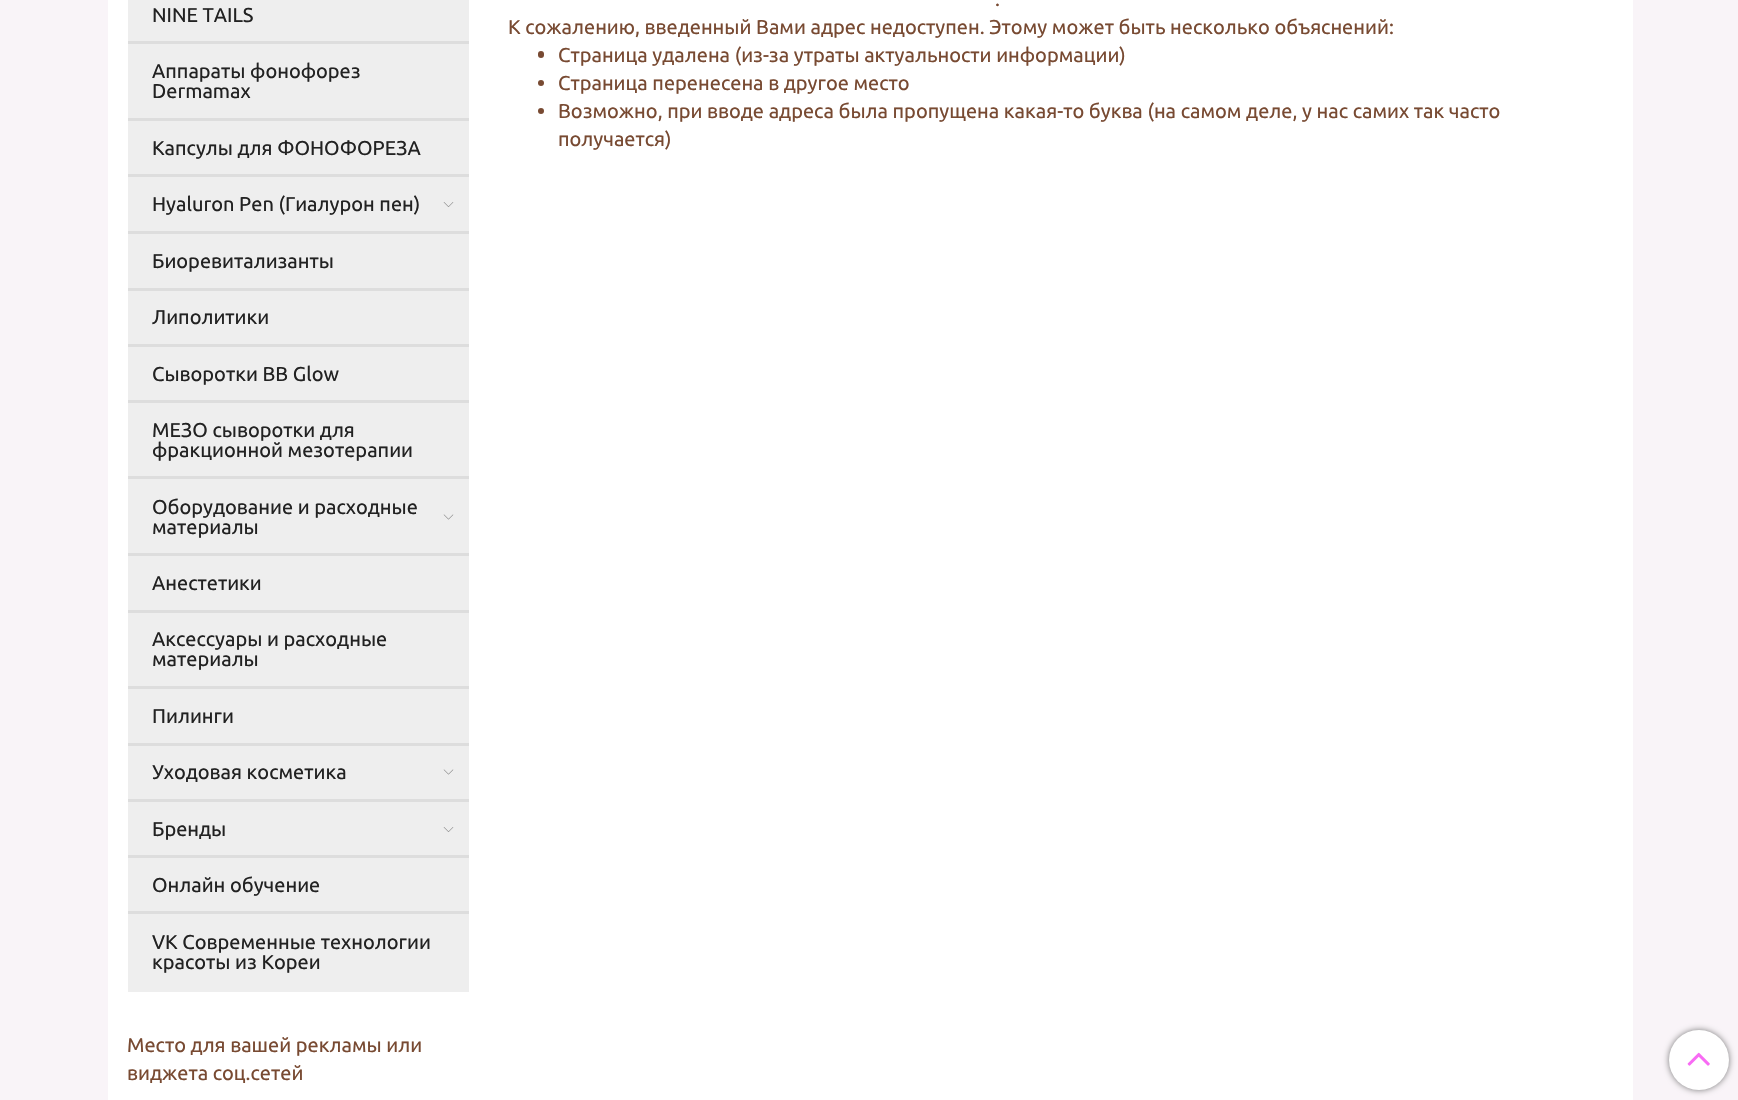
void draw(SkCanvas* canvas) {
	SkPaint paint;
	paint.setAntiAlias(true);
	canvas->clear(0xfff9f4f8);
	paint.setColor(0xffffffff);
	canvas->drawRect(SkRect::MakeXYWH(108, 0, 1525, 1100), paint);
	paint.setColor(0xffeeeeee);
	canvas->drawRect(SkRect::MakeXYWH(128, 0, 341, 992), paint);
	paint.setColor(0xffdddddd);
	canvas->drawRect(SkRect::MakeXYWH(128, 41, 341, 3), paint);
	SkFont f1(fontMgr->matchFamilyStyle("Ubuntu", SkFontStyle::Normal()), 20);
	f1.setSubpixel(true);
	paint.setColor(0xff222222);
	canvas->drawString("NINE TAILS", 152, 22, f1, paint);
	paint.setColor(0xffdddddd);
	canvas->drawRect(SkRect::MakeXYWH(128, 118, 341, 3), paint);
	paint.setColor(0xff222222);
	canvas->drawString("Аппараты фонофорез", 152, 78, f1, paint);
	canvas->drawString("Dermamax", 152, 98, f1, paint);
	paint.setColor(0xffdddddd);
	canvas->drawRect(SkRect::MakeXYWH(128, 174, 341, 3), paint);
	paint.setColor(0xff222222);
	canvas->drawString("Капсулы для ФОНОФОРЕЗА", 152, 155, f1, paint);
	paint.setColor(0xffdddddd);
	canvas->drawRect(SkRect::MakeXYWH(128, 231, 341, 3), paint);
	paint.setColor(0xff222222);
	canvas->drawString("Hyaluron Pen (Гиалурон пен)", 152, 211, f1, paint);
	canvas->drawImageRect(SkImages::DeferredFromEncodedData(SkData::MakeFromFileName("img1.png")), SkRect::MakeXYWH(443, 202, 11, 5), SkSamplingOptions());
	paint.setColor(0xffdddddd);
	canvas->drawRect(SkRect::MakeXYWH(128, 288, 341, 3), paint);
	paint.setColor(0xff222222);
	canvas->drawString("Биоревитализанты", 152, 268, f1, paint);
	paint.setColor(0xffdddddd);
	canvas->drawRect(SkRect::MakeXYWH(128, 344, 341, 3), paint);
	paint.setColor(0xff222222);
	canvas->drawString("Липолитики", 152, 324, f1, paint);
	paint.setColor(0xffdddddd);
	canvas->drawRect(SkRect::MakeXYWH(128, 400, 341, 3), paint);
	paint.setColor(0xff222222);
	canvas->drawString("Сыворотки BB Glow", 152, 381, f1, paint);
	paint.setColor(0xffdddddd);
	canvas->drawRect(SkRect::MakeXYWH(128, 476, 341, 3), paint);
	paint.setColor(0xff222222);
	canvas->drawString("МЕЗО сыворотки для", 152, 437, f1, paint);
	canvas->drawString("фракционной мезотерапии", 152, 457, f1, paint);
	paint.setColor(0xffdddddd);
	canvas->drawRect(SkRect::MakeXYWH(128, 553, 341, 3), paint);
	paint.setColor(0xff222222);
	canvas->drawString("Оборудование и расходные", 152, 514, f1, paint);
	canvas->drawString("материалы", 152, 534, f1, paint);
	canvas->drawImageRect(SkImages::DeferredFromEncodedData(SkData::MakeFromFileName("img2.png")), SkRect::MakeXYWH(443, 514, 11, 6), SkSamplingOptions());
	paint.setColor(0xffdddddd);
	canvas->drawRect(SkRect::MakeXYWH(128, 610, 341, 3), paint);
	paint.setColor(0xff222222);
	canvas->drawString("Анестетики", 152, 590, f1, paint);
	paint.setColor(0xffdddddd);
	canvas->drawRect(SkRect::MakeXYWH(128, 686, 341, 3), paint);
	paint.setColor(0xff222222);
	canvas->drawString("Аксессуары и расходные", 152, 646, f1, paint);
	canvas->drawString("материалы", 152, 666, f1, paint);
	paint.setColor(0xffdddddd);
	canvas->drawRect(SkRect::MakeXYWH(128, 743, 341, 3), paint);
	paint.setColor(0xff222222);
	canvas->drawString("Пилинги", 152, 723, f1, paint);
	paint.setColor(0xffdddddd);
	canvas->drawRect(SkRect::MakeXYWH(128, 799, 341, 3), paint);
	paint.setColor(0xff222222);
	canvas->drawString("Уходовая косметика", 152, 779, f1, paint);
	canvas->drawImageRect(SkImages::DeferredFromEncodedData(SkData::MakeFromFileName("img2.png")), SkRect::MakeXYWH(443, 769, 11, 6), SkSamplingOptions());
	paint.setColor(0xffdddddd);
	canvas->drawRect(SkRect::MakeXYWH(128, 855, 341, 3), paint);
	paint.setColor(0xff222222);
	canvas->drawString("Бренды", 152, 836, f1, paint);
	canvas->drawImageRect(SkImages::DeferredFromEncodedData(SkData::MakeFromFileName("img1.png")), SkRect::MakeXYWH(443, 827, 11, 5), SkSamplingOptions());
	paint.setColor(0xffdddddd);
	canvas->drawRect(SkRect::MakeXYWH(128, 911, 341, 3), paint);
	paint.setColor(0xff222222);
	canvas->drawString("Онлайн обучение", 152, 892, f1, paint);
	canvas->drawString("VK Современные технологии", 152, 949, f1, paint);
	canvas->drawString("красоты из Кореи", 152, 969, f1, paint);
	paint.setColor(0xff784a32);
	canvas->drawString("Место для вашей рекламы или", 127, 1052, f1, paint);
	canvas->drawString("виджета соц.сетей", 127, 1080, f1, paint);
	canvas->drawString(".", 995, 6, f1, paint);
	canvas->drawString("К сожалению, введенный Вами адрес недоступен. Этому может быть несколько объяснений:", 508, 34, f1, paint);
	canvas->drawRoundRect(SkRect::MakeXYWH(538, 51, 6, 7), 3, 3, paint);
	canvas->drawString("Страница удалена (из-за утраты актуальности информации)", 558, 62, f1, paint);
	canvas->drawCircle(541, 83, 3, paint);
	canvas->drawString("Страница перенесена в другое место", 558, 90, f1, paint);
	canvas->drawCircle(541, 111, 3, paint);
	canvas->drawString("Возможно, при вводе адреса была пропущена какая-то буква (на самом деле, у нас самих так часто", 558, 118, f1, paint);
	canvas->drawString("получается)", 558, 146, f1, paint);
	paint.setColor(0xff777777);
	paint.setMaskFilter(SkMaskFilter::MakeBlur(kNormal_SkBlurStyle, 3));
	canvas->drawRoundRect(SkRect::MakeXYWH(1669, 1030, 60, 60), 30, 30, paint);
	paint.setMaskFilter(nullptr);
	paint.setColor(0xffffffff);
	canvas->drawCircle(1699, 1060, 30, paint);
	canvas->drawImageRect(SkImages::DeferredFromEncodedData(SkData::MakeFromFileName("img3.png")), SkRect::MakeXYWH(1687, 1052, 23, 14), SkSamplingOptions());
}
